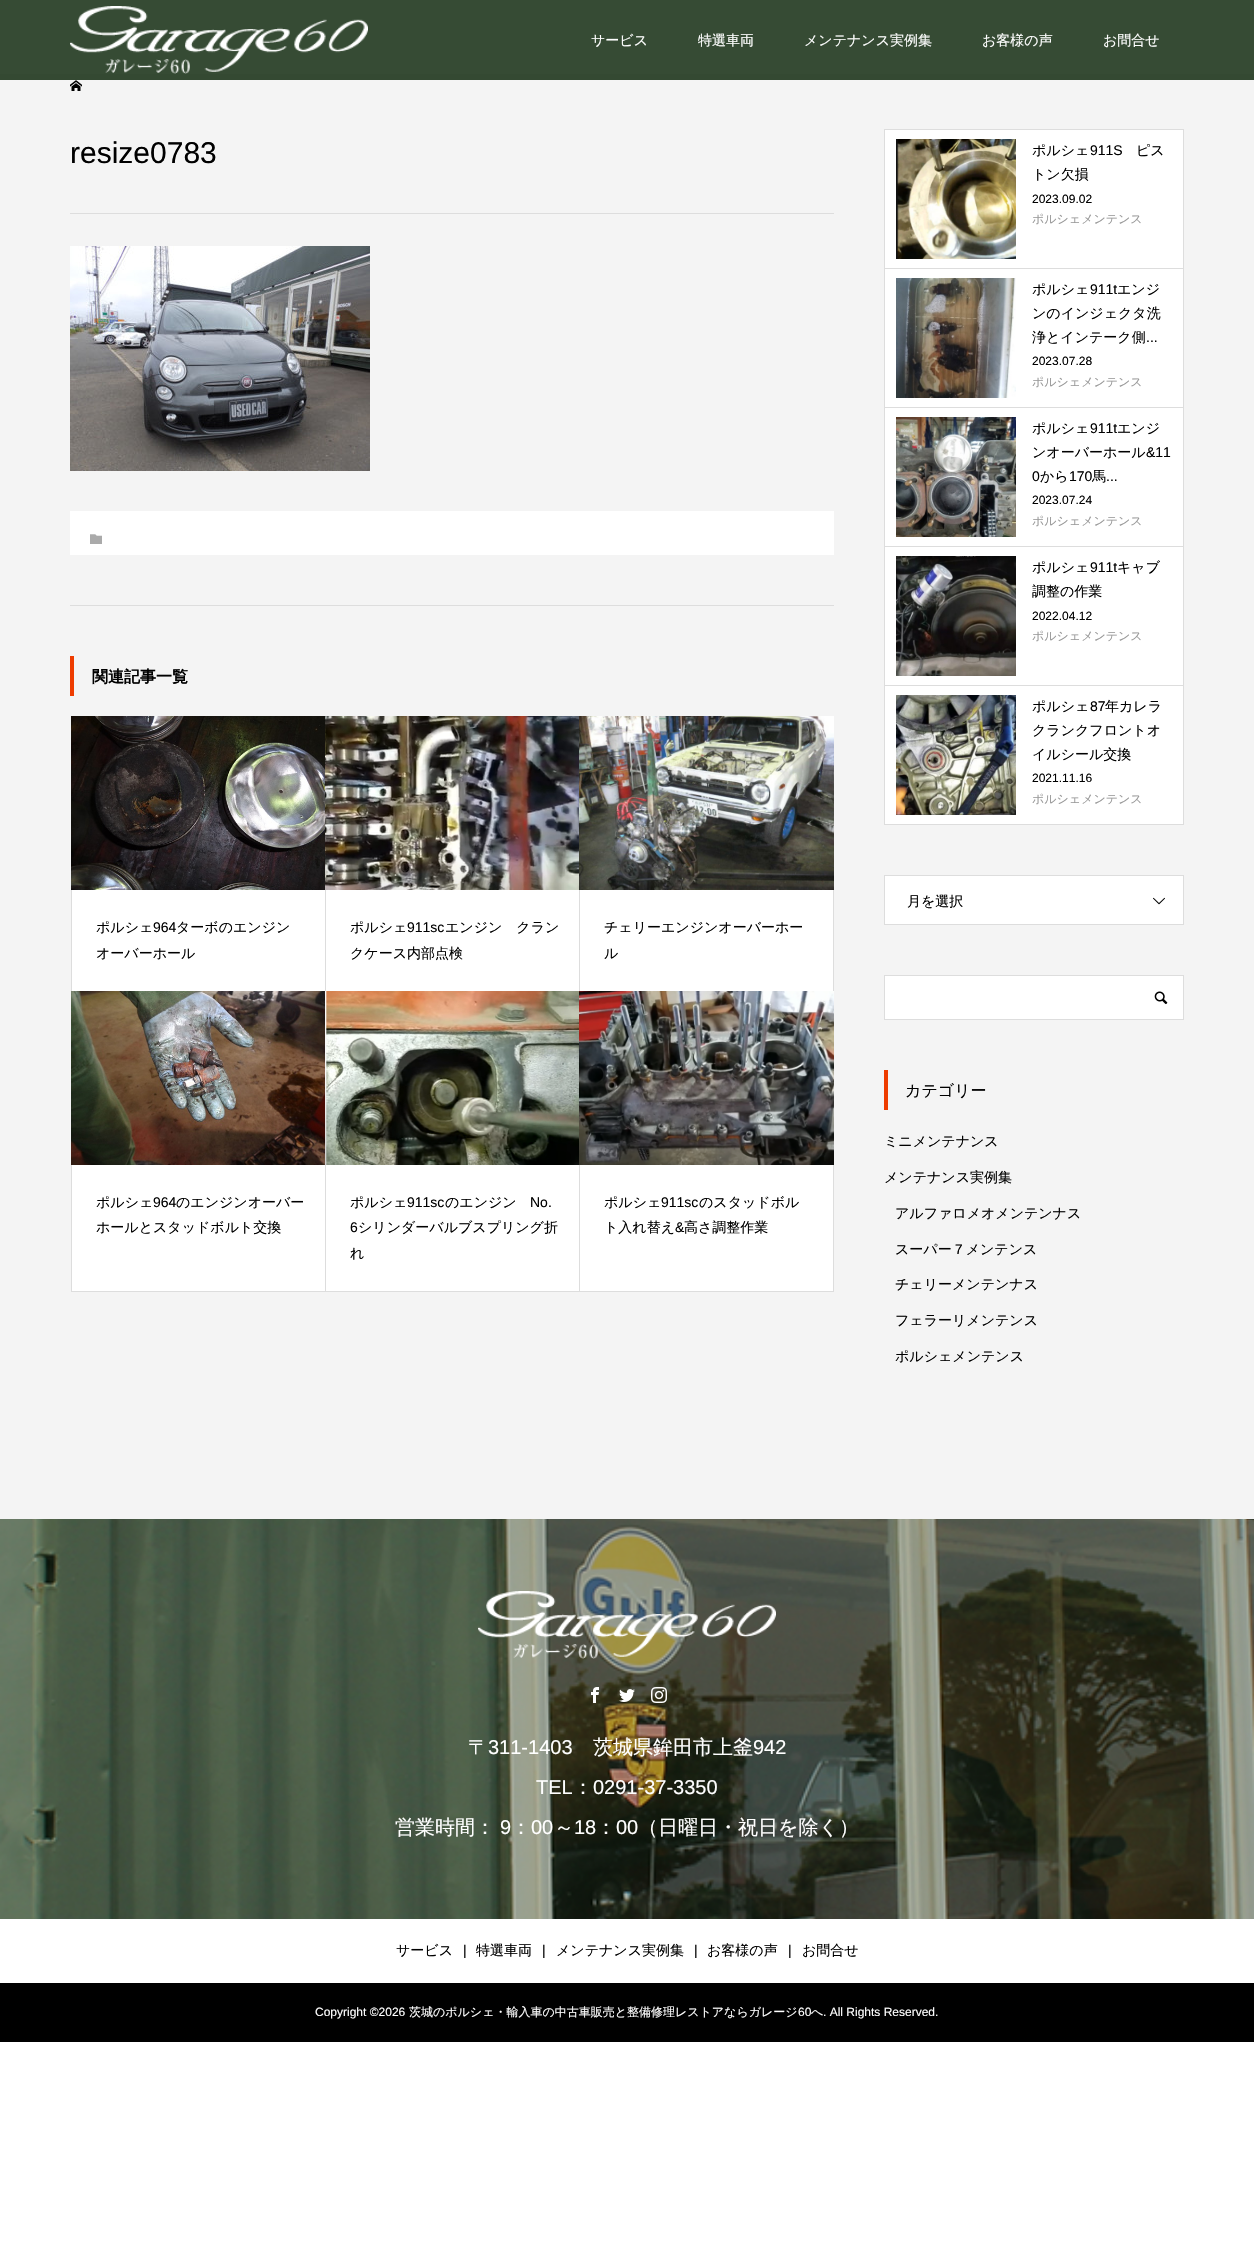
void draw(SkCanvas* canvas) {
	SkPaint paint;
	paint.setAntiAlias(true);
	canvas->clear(0xffffffff);
	paint.setColor(0xff364b34);
	canvas->drawRect(SkRect::MakeXYWH(0, 0, 1254, 74), paint);
	canvas->drawImageRect(SkImages::DeferredFromEncodedData(SkData::MakeFromFileName("img1.png")), SkRect::MakeXYWH(70, 6, 298, 68), SkSamplingOptions());
	SkFont f1(fontMgr->matchFamilyStyle("WenQuanYi Zen Hei", SkFontStyle(500, SkFontStyle::kNormal_Width, SkFontStyle::kUpright_Slant)), 14);
	f1.setSubpixel(true);
	paint.setColor(0xffffffff);
	canvas->drawString("サービス", 591, 45, f1, paint);
	canvas->drawString("特選車両", 698, 45, f1, paint);
	canvas->drawString("メンテナンス実例集", 804, 45, f1, paint);
	canvas->drawString("お客様の声", 982, 45, f1, paint);
	canvas->drawString("お問合せ", 1103, 45, f1, paint);
	paint.setColor(0xfff4f4f4);
	canvas->drawRect(SkRect::MakeXYWH(0, 80, 1254, 1439), paint);
	paint.setColor(0xff344932);
	canvas->drawRect(SkRect::MakeXYWH(0, 74, 1254, 6), paint);
	canvas->drawImageRect(SkImages::DeferredFromEncodedData(SkData::MakeFromFileName("img2.png")), SkRect::MakeXYWH(70, 80, 12, 11), SkSamplingOptions());
	SkFont f2(fontMgr->matchFamilyStyle("Liberation Sans", SkFontStyle::Normal()), 30);
	f2.setSubpixel(true);
	paint.setColor(0xff000000);
	canvas->drawString("resize0783", 70, 163, f2, paint);
	paint.setColor(0xffdddddd);
	canvas->drawRect(SkRect::MakeXYWH(70, 213, 764, 1), paint);
	canvas->drawRect(SkRect::MakeXYWH(70, 605, 764, 1), paint);
	canvas->drawImageRect(SkImages::DeferredFromEncodedData(SkData::MakeFromFileName("img3.png")), SkRect::MakeXYWH(70, 246, 300, 225), SkSamplingOptions());
	paint.setColor(0xffffffff);
	canvas->drawRect(SkRect::MakeXYWH(70, 511, 764, 44), paint);
	canvas->drawImageRect(SkImages::DeferredFromEncodedData(SkData::MakeFromFileName("img4.png")), SkRect::MakeXYWH(90, 534, 12, 10), SkSamplingOptions());
	paint.setColor(0xffee3c00);
	canvas->drawRect(SkRect::MakeXYWH(70, 656, 4, 40), paint);
	SkFont f3(fontMgr->matchFamilyStyle("WenQuanYi Zen Hei", SkFontStyle::Bold()), 16);
	f3.setSubpixel(true);
	paint.setColor(0xff000000);
	canvas->drawString("関連記事一覧", 92, 682, f3, paint);
	paint.setColor(0xffdddddd);
	canvas->drawRect(SkRect::MakeXYWH(71, 890, 1, 402), paint);
	paint.setColor(0xffffffff);
	canvas->drawRect(SkRect::MakeXYWH(72, 890, 253, 101), paint);
	paint.setColor(0xffdddddd);
	canvas->drawRect(SkRect::MakeXYWH(325, 890, 1, 101), paint);
	canvas->drawImageRect(SkImages::DeferredFromEncodedData(SkData::MakeFromFileName("img5.png")), SkRect::MakeXYWH(71, 716, 254, 174), SkSamplingOptions());
	paint.setColor(0xff000000);
	canvas->drawString("ポルシェ", 96, 932, f1, paint);
	SkFont f4(fontMgr->matchFamilyStyle("Liberation Sans", SkFontStyle::Normal()), 14);
	f4.setSubpixel(true);
	canvas->drawString("964", 153, 932, f4, paint);
	canvas->drawString("ターボのエンジン", 176, 932, f1, paint);
	canvas->drawString("オーバーホール", 96, 958, f1, paint);
	paint.setColor(0xffffffff);
	canvas->drawRect(SkRect::MakeXYWH(326, 890, 253, 101), paint);
	paint.setColor(0xffdddddd);
	canvas->drawRect(SkRect::MakeXYWH(579, 890, 1, 101), paint);
	canvas->drawImageRect(SkImages::DeferredFromEncodedData(SkData::MakeFromFileName("img6.png")), SkRect::MakeXYWH(325, 716, 254, 174), SkSamplingOptions());
	paint.setColor(0xff000000);
	canvas->drawString("ポルシェ", 350, 932, f1, paint);
	canvas->drawString("911sc", 407, 932, f4, paint);
	canvas->drawString("エンジン　クラン", 445, 932, f1, paint);
	canvas->drawString("クケース内部点検", 350, 958, f1, paint);
	paint.setColor(0xffffffff);
	canvas->drawRect(SkRect::MakeXYWH(580, 890, 253, 101), paint);
	paint.setColor(0xffdddddd);
	canvas->drawRect(SkRect::MakeXYWH(833, 890, 1, 101), paint);
	canvas->drawImageRect(SkImages::DeferredFromEncodedData(SkData::MakeFromFileName("img7.png")), SkRect::MakeXYWH(579, 716, 255, 174), SkSamplingOptions());
	paint.setColor(0xff000000);
	canvas->drawString("チェリーエンジンオーバーホー", 604, 932, f1, paint);
	canvas->drawString("ル", 604, 958, f1, paint);
	paint.setColor(0xffffffff);
	canvas->drawRect(SkRect::MakeXYWH(72, 1165, 253, 126), paint);
	paint.setColor(0xffdddddd);
	canvas->drawRect(SkRect::MakeXYWH(325, 1165, 1, 127), paint);
	canvas->drawRect(SkRect::MakeXYWH(72, 1291, 254, 1), paint);
	canvas->drawImageRect(SkImages::DeferredFromEncodedData(SkData::MakeFromFileName("img8.png")), SkRect::MakeXYWH(71, 991, 254, 174), SkSamplingOptions());
	paint.setColor(0xff000000);
	canvas->drawString("ポルシェ", 96, 1207, f1, paint);
	canvas->drawString("964", 153, 1207, f4, paint);
	canvas->drawString("のエンジンオーバー", 176, 1207, f1, paint);
	canvas->drawString("ホールとスタッドボルト交換", 96, 1232, f1, paint);
	paint.setColor(0xffffffff);
	canvas->drawRect(SkRect::MakeXYWH(326, 1165, 253, 126), paint);
	paint.setColor(0xffdddddd);
	canvas->drawRect(SkRect::MakeXYWH(579, 1165, 1, 127), paint);
	canvas->drawRect(SkRect::MakeXYWH(326, 1291, 254, 1), paint);
	canvas->drawImageRect(SkImages::DeferredFromEncodedData(SkData::MakeFromFileName("img9.png")), SkRect::MakeXYWH(325, 991, 254, 174), SkSamplingOptions());
	paint.setColor(0xff000000);
	canvas->drawString("ポルシェ", 350, 1207, f1, paint);
	canvas->drawString("911sc", 407, 1207, f4, paint);
	canvas->drawString("のエンジン", 445, 1207, f1, paint);
	canvas->drawString("No.", 530, 1207, f4, paint);
	canvas->drawString("6", 350, 1232, f4, paint);
	canvas->drawString("シリンダーバルブスプリング折", 358, 1232, f1, paint);
	canvas->drawString("れ", 350, 1258, f1, paint);
	paint.setColor(0xffffffff);
	canvas->drawRect(SkRect::MakeXYWH(580, 1165, 253, 126), paint);
	paint.setColor(0xffdddddd);
	canvas->drawRect(SkRect::MakeXYWH(833, 1165, 1, 127), paint);
	canvas->drawRect(SkRect::MakeXYWH(580, 1291, 254, 1), paint);
	canvas->drawImageRect(SkImages::DeferredFromEncodedData(SkData::MakeFromFileName("img10.png")), SkRect::MakeXYWH(579, 991, 255, 174), SkSamplingOptions());
	paint.setColor(0xff000000);
	canvas->drawString("ポルシェ", 604, 1207, f1, paint);
	canvas->drawString("911sc", 661, 1207, f4, paint);
	canvas->drawString("のスタッドボル", 699, 1207, f1, paint);
	canvas->drawString("ト入れ替え", 604, 1232, f1, paint);
	canvas->drawString("&", 675, 1232, f4, paint);
	canvas->drawString("高さ調整作業", 684, 1232, f1, paint);
	paint.setColor(0xffffffff);
	canvas->drawRect(SkRect::MakeXYWH(885, 130, 298, 694), paint);
	paint.setColor(0xffdddddd);
	canvas->drawRect(SkRect::MakeXYWH(884, 129, 300, 1), paint);
	canvas->drawRect(SkRect::MakeXYWH(1183, 130, 1, 695), paint);
	canvas->drawRect(SkRect::MakeXYWH(884, 268, 300, 1), paint);
	canvas->drawRect(SkRect::MakeXYWH(884, 130, 1, 139), paint);
	canvas->drawImageRect(SkImages::DeferredFromEncodedData(SkData::MakeFromFileName("img11.png")), SkRect::MakeXYWH(896, 139, 120, 120), SkSamplingOptions());
	paint.setColor(0xff000000);
	canvas->drawString("ポルシェ", 1032, 155, f1, paint);
	canvas->drawString("911S", 1090, 155, f4, paint);
	canvas->drawString("ピス", 1136, 155, f1, paint);
	canvas->drawString("トン欠損", 1032, 179, f1, paint);
	SkFont f5(fontMgr->matchFamilyStyle("Liberation Sans", SkFontStyle::Normal()), 12);
	f5.setSubpixel(true);
	canvas->drawString("2023.09.02", 1032, 203, f5, paint);
	SkFont f6(fontMgr->matchFamilyStyle("WenQuanYi Zen Hei", SkFontStyle(500, SkFontStyle::kNormal_Width, SkFontStyle::kUpright_Slant)), 12);
	f6.setSubpixel(true);
	paint.setColor(0xff999999);
	canvas->drawString("ポルシェメンテンス", 1032, 223, f6, paint);
	paint.setColor(0xffdddddd);
	canvas->drawRect(SkRect::MakeXYWH(884, 407, 300, 1), paint);
	canvas->drawRect(SkRect::MakeXYWH(884, 269, 1, 139), paint);
	canvas->drawImageRect(SkImages::DeferredFromEncodedData(SkData::MakeFromFileName("img12.png")), SkRect::MakeXYWH(896, 278, 120, 120), SkSamplingOptions());
	paint.setColor(0xff000000);
	canvas->drawString("ポルシェ", 1032, 294, f1, paint);
	canvas->drawString("911t", 1090, 294, f4, paint);
	canvas->drawString("エンジ", 1117, 294, f1, paint);
	canvas->drawString("ンのインジェクタ洗", 1032, 318, f1, paint);
	canvas->drawString("浄とインテーク側", 1032, 342, f1, paint);
	canvas->drawString("...", 1146, 342, f4, paint);
	canvas->drawString("2023.07.28", 1032, 365, f5, paint);
	paint.setColor(0xff999999);
	canvas->drawString("ポルシェメンテンス", 1032, 386, f6, paint);
	paint.setColor(0xffdddddd);
	canvas->drawRect(SkRect::MakeXYWH(884, 546, 300, 1), paint);
	canvas->drawRect(SkRect::MakeXYWH(884, 408, 1, 139), paint);
	canvas->drawImageRect(SkImages::DeferredFromEncodedData(SkData::MakeFromFileName("img13.png")), SkRect::MakeXYWH(896, 417, 120, 120), SkSamplingOptions());
	paint.setColor(0xff000000);
	canvas->drawString("ポルシェ", 1032, 433, f1, paint);
	canvas->drawString("911t", 1090, 433, f4, paint);
	canvas->drawString("エンジ", 1117, 433, f1, paint);
	canvas->drawString("ンオーバーホール", 1032, 457, f1, paint);
	canvas->drawString("&11", 1146, 457, f4, paint);
	canvas->drawString("0", 1032, 481, f4, paint);
	canvas->drawString("から", 1040, 481, f1, paint);
	canvas->drawString("170", 1069, 481, f4, paint);
	canvas->drawString("馬", 1092, 481, f1, paint);
	canvas->drawString("...", 1106, 481, f4, paint);
	canvas->drawString("2023.07.24", 1032, 504, f5, paint);
	paint.setColor(0xff999999);
	canvas->drawString("ポルシェメンテンス", 1032, 525, f6, paint);
	paint.setColor(0xffdddddd);
	canvas->drawRect(SkRect::MakeXYWH(884, 685, 300, 1), paint);
	canvas->drawRect(SkRect::MakeXYWH(884, 547, 1, 139), paint);
	canvas->drawImageRect(SkImages::DeferredFromEncodedData(SkData::MakeFromFileName("img14.png")), SkRect::MakeXYWH(896, 556, 120, 120), SkSamplingOptions());
	paint.setColor(0xff000000);
	canvas->drawString("ポルシェ", 1032, 572, f1, paint);
	canvas->drawString("911t", 1090, 572, f4, paint);
	canvas->drawString("キャブ", 1117, 572, f1, paint);
	canvas->drawString("調整の作業", 1032, 596, f1, paint);
	canvas->drawString("2022.04.12", 1032, 620, f5, paint);
	paint.setColor(0xff999999);
	canvas->drawString("ポルシェメンテンス", 1032, 640, f6, paint);
	paint.setColor(0xffdddddd);
	canvas->drawRect(SkRect::MakeXYWH(884, 824, 300, 1), paint);
	canvas->drawRect(SkRect::MakeXYWH(884, 686, 1, 139), paint);
	canvas->drawImageRect(SkImages::DeferredFromEncodedData(SkData::MakeFromFileName("img15.png")), SkRect::MakeXYWH(896, 695, 120, 120), SkSamplingOptions());
	paint.setColor(0xff000000);
	canvas->drawString("ポルシェ", 1032, 711, f1, paint);
	canvas->drawString("87", 1090, 711, f4, paint);
	canvas->drawString("年カレラ", 1105, 711, f1, paint);
	canvas->drawString("クランクフロントオ", 1032, 735, f1, paint);
	canvas->drawString("イルシール交換", 1032, 759, f1, paint);
	canvas->drawString("2021.11.16", 1032, 782, f5, paint);
	paint.setColor(0xff999999);
	canvas->drawString("ポルシェメンテンス", 1032, 803, f6, paint);
	paint.setColor(0xffffffff);
	canvas->drawRect(SkRect::MakeXYWH(884.5, 875.5, 299, 49), paint);
	paint.setStroke(true);
	paint.setStrokeWidth(1);
	paint.setColor(0xffdddddd);
	canvas->drawRect(SkRect::MakeXYWH(884.5, 875.5, 299, 49), paint);
	paint.setStroke(false);
	paint.setColor(0xff000000);
	canvas->drawString("月を選択", 907, 906, f1, paint);
	canvas->drawImageRect(SkImages::DeferredFromEncodedData(SkData::MakeFromFileName("img16.png")), SkRect::MakeXYWH(1153, 897, 12, 8), SkSamplingOptions());
	paint.setColor(0xffffffff);
	canvas->drawRect(SkRect::MakeXYWH(885, 976, 298, 43), paint);
	paint.setColor(0xffdddddd);
	canvas->drawRect(SkRect::MakeXYWH(884, 975, 300, 1), paint);
	canvas->drawRect(SkRect::MakeXYWH(884, 1019, 255, 1), paint);
	canvas->drawRect(SkRect::MakeXYWH(884, 975, 1, 45), paint);
	canvas->drawRect(SkRect::MakeXYWH(1183, 975, 1, 45), paint);
	canvas->drawRect(SkRect::MakeXYWH(1139, 1019, 45, 1), paint);
	canvas->drawImageRect(SkImages::DeferredFromEncodedData(SkData::MakeFromFileName("img17.png")), SkRect::MakeXYWH(1154, 991, 14, 14), SkSamplingOptions());
	paint.setColor(0xffee3c00);
	canvas->drawRect(SkRect::MakeXYWH(884, 1070, 4, 40), paint);
	SkFont f7(fontMgr->matchFamilyStyle("WenQuanYi Zen Hei", SkFontStyle(500, SkFontStyle::kNormal_Width, SkFontStyle::kUpright_Slant)), 16);
	f7.setSubpixel(true);
	paint.setColor(0xff000000);
	canvas->drawString("カテゴリー", 905, 1096, f7, paint);
	canvas->drawString("ミニメンテナンス", 884, 1146, f1, paint);
	canvas->drawString("メンテナンス実例集", 884, 1182, f1, paint);
	canvas->drawString("アルファロメオメンテンナス", 895, 1218, f1, paint);
	canvas->drawString("スーパー７メンテンス", 895, 1254, f1, paint);
	canvas->drawString("チェリーメンテンナス", 895, 1289, f1, paint);
	canvas->drawString("フェラーリメンテンス", 895, 1325, f1, paint);
	canvas->drawString("ポルシェメンテンス", 895, 1361, f1, paint);
	canvas->drawImageRect(SkImages::DeferredFromEncodedData(SkData::MakeFromFileName("img18.png")), SkRect::MakeXYWH(0, 1519, 1254, 400), SkSamplingOptions());
	canvas->drawImageRect(SkImages::DeferredFromEncodedData(SkData::MakeFromFileName("img19.png")), SkRect::MakeXYWH(478, 1591, 298, 68), SkSamplingOptions());
	canvas->drawImageRect(SkImages::DeferredFromEncodedData(SkData::MakeFromFileName("img20.png")), SkRect::MakeXYWH(591, 1687, 8, 16), SkSamplingOptions());
	canvas->drawImageRect(SkImages::DeferredFromEncodedData(SkData::MakeFromFileName("img21.png")), SkRect::MakeXYWH(619, 1689, 16, 13), SkSamplingOptions());
	canvas->drawImageRect(SkImages::DeferredFromEncodedData(SkData::MakeFromFileName("img22.png")), SkRect::MakeXYWH(651, 1687, 16, 16), SkSamplingOptions());
	SkFont f8(fontMgr->matchFamilyStyle("WenQuanYi Zen Hei", SkFontStyle(500, SkFontStyle::kNormal_Width, SkFontStyle::kUpright_Slant)), 20);
	f8.setSubpixel(true);
	paint.setColor(0xffffffff);
	canvas->drawString("〒", 468, 1754, f8, paint);
	SkFont f9(fontMgr->matchFamilyStyle("Liberation Sans", SkFontStyle::Normal()), 20);
	f9.setSubpixel(true);
	canvas->drawString("311-1403", 488, 1754, f9, paint);
	canvas->drawString("茨城県鉾田市上釜", 593, 1754, f8, paint);
	canvas->drawString("942", 753, 1754, f9, paint);
	canvas->drawString("TEL", 536, 1794, f9, paint);
	canvas->drawString("：", 573, 1794, f8, paint);
	canvas->drawString("0291-37-3350", 593, 1794, f9, paint);
	canvas->drawString("営業時間：", 395, 1834, f8, paint);
	canvas->drawString("9", 500, 1834, f9, paint);
	canvas->drawString("：", 511, 1834, f8, paint);
	canvas->drawString("00", 531, 1834, f9, paint);
	canvas->drawString("～", 554, 1834, f8, paint);
	canvas->drawString("18", 574, 1834, f9, paint);
	canvas->drawString("：", 596, 1834, f8, paint);
	canvas->drawString("00", 616, 1834, f9, paint);
	canvas->drawString("（日曜日・祝日を除く）", 638, 1834, f8, paint);
	paint.setColor(0xff000000);
	canvas->drawString("サービス", 396, 1955, f1, paint);
	canvas->drawString("|", 463, 1955, f4, paint);
	canvas->drawString("特選車両", 476, 1955, f1, paint);
	canvas->drawString("|", 542, 1955, f4, paint);
	canvas->drawString("メンテナンス実例集", 556, 1955, f1, paint);
	canvas->drawString("|", 694, 1955, f4, paint);
	canvas->drawString("お客様の声", 707, 1955, f1, paint);
	canvas->drawString("|", 788, 1955, f4, paint);
	canvas->drawString("お問合せ", 802, 1955, f1, paint);
	canvas->drawRect(SkRect::MakeXYWH(0, 1983, 1254, 59), paint);
	paint.setColor(0xffffffff);
	canvas->drawString("Copyright ©2026", 315, 2016, f5, paint);
	canvas->drawString("茨城のポルシェ・輸入車の中古車販売と整備修理レストアならガレージ", 409, 2016, f6, paint);
	canvas->drawString("60", 798, 2016, f5, paint);
	canvas->drawString("へ", 811, 2016, f6, paint);
	canvas->drawString(". All Rights Reserved.", 823, 2016, f5, paint);
}
